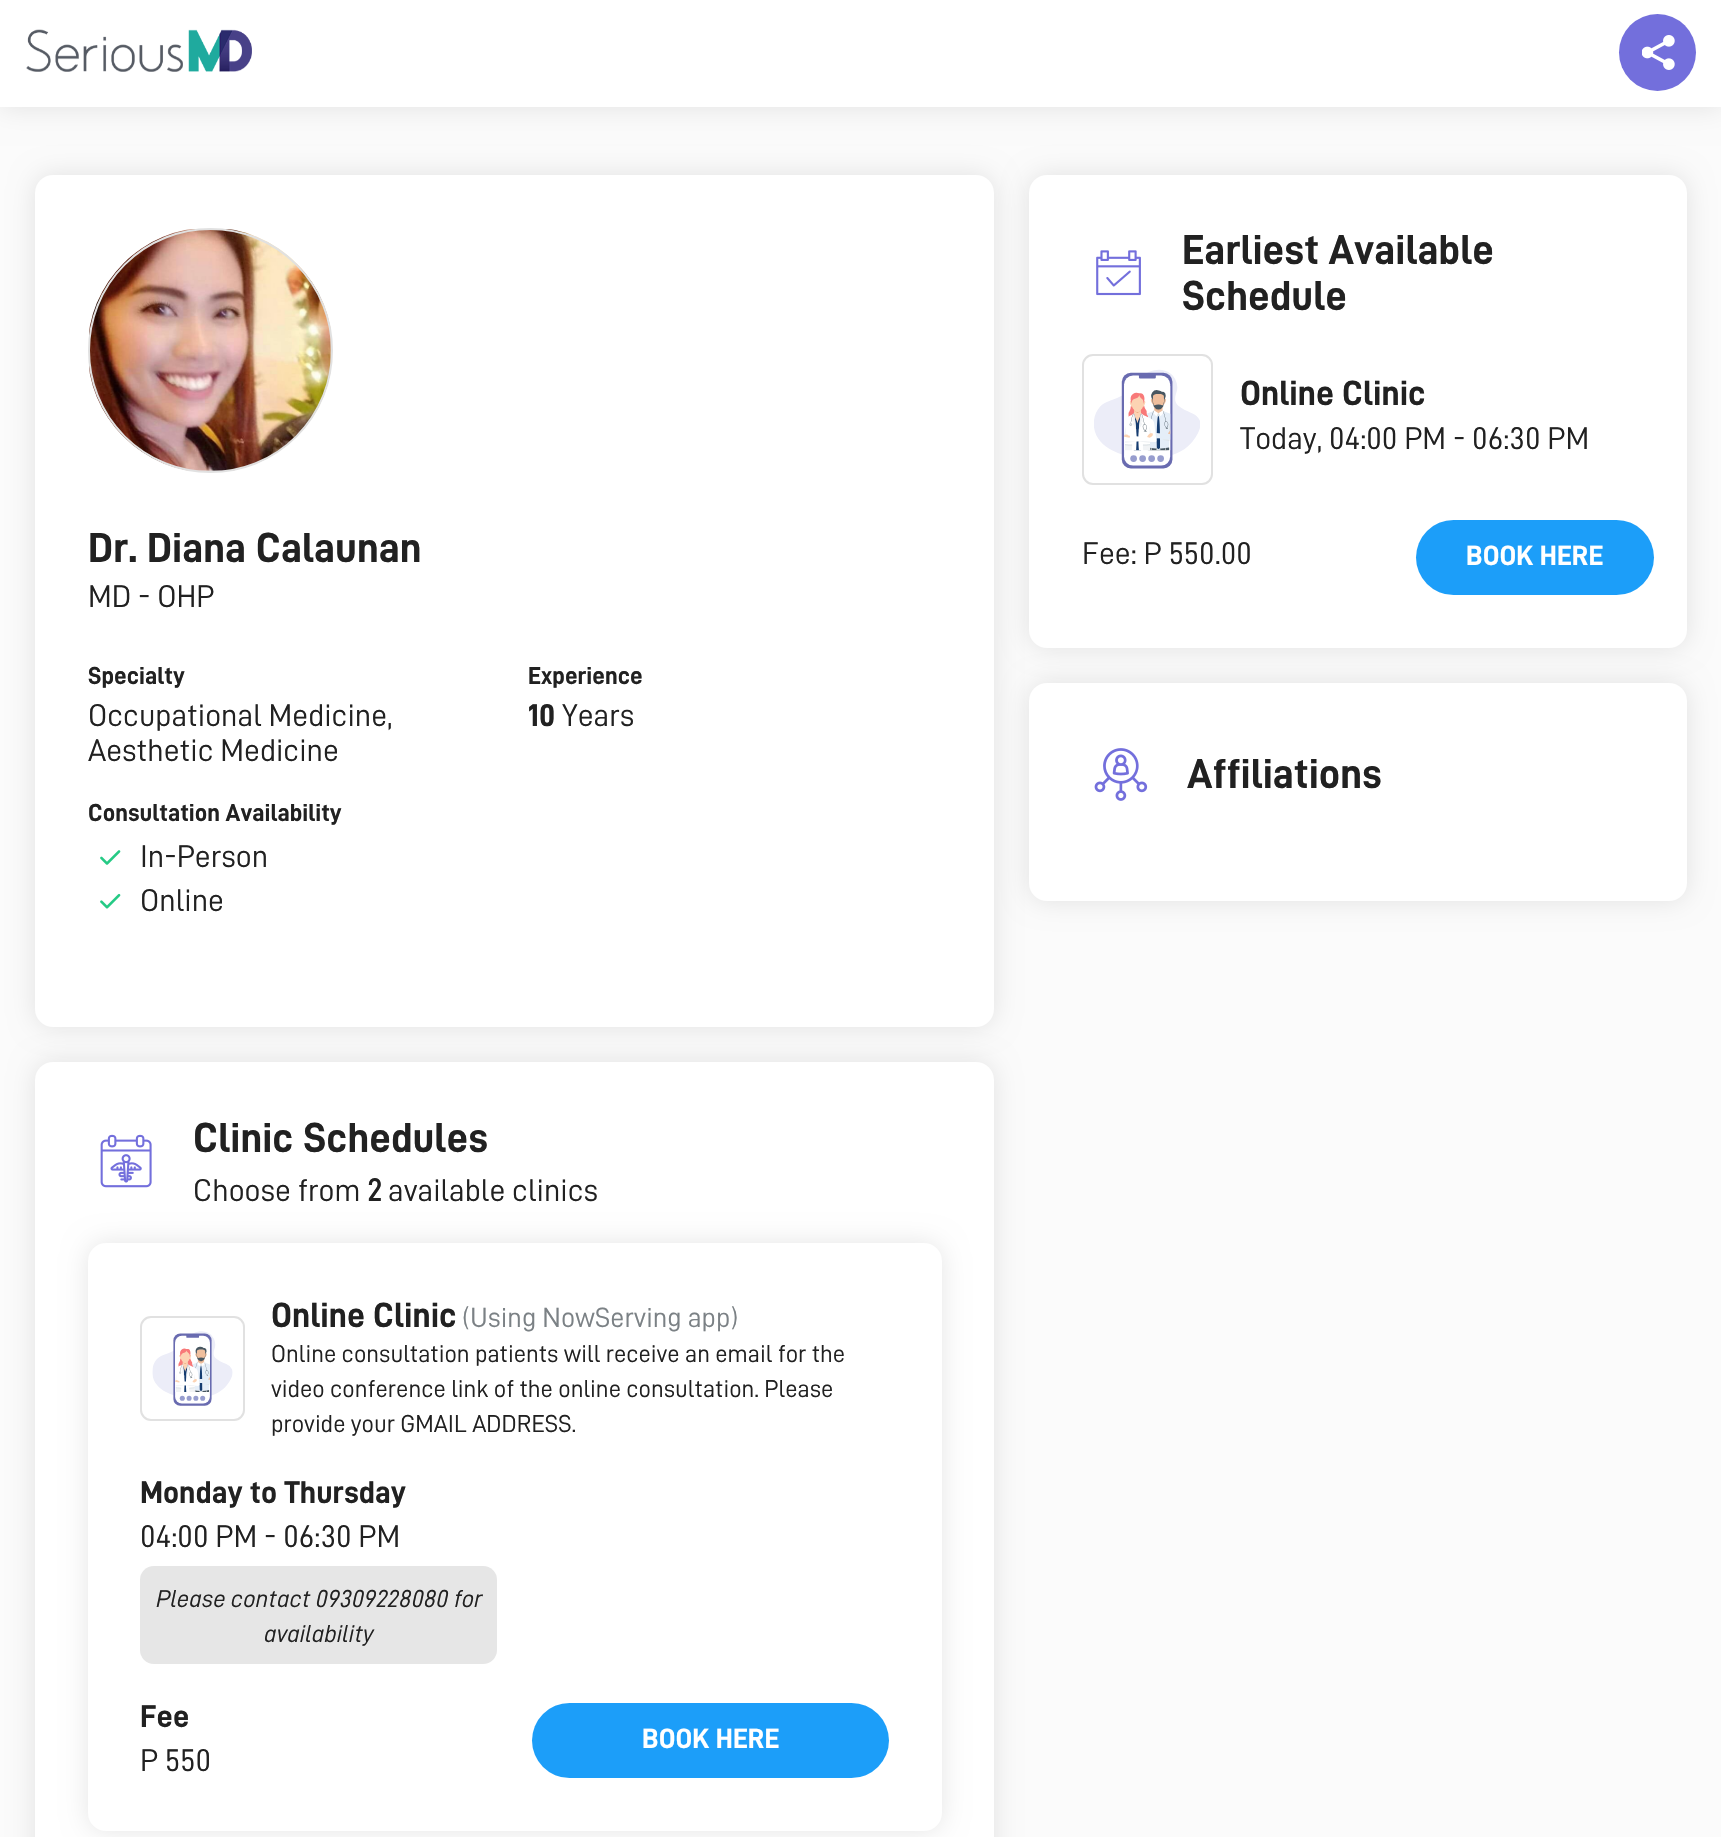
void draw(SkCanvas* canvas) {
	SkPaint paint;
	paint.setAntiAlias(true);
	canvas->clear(0xfffbfbfb);
	paint.setColor(0x1a000000);
	paint.setMaskFilter(SkMaskFilter::MakeBlur(kNormal_SkBlurStyle, 13));
	canvas->drawRect(SkRect::MakeXYWH(0, 0, 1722, 107), paint);
	paint.setMaskFilter(nullptr);
	paint.setColor(0xffffffff);
	canvas->drawRect(SkRect::MakeXYWH(0, 0, 1721, 107), paint);
	canvas->drawImageRect(SkImages::DeferredFromEncodedData(SkData::MakeFromFileName("img1.png")), SkRect::MakeXYWH(26, 29, 226, 43), SkSamplingOptions());
	paint.setColor(0xff736fdc);
	canvas->drawCircle(1657.5, 52.5, 38.5, paint);
	canvas->drawImageRect(SkImages::DeferredFromEncodedData(SkData::MakeFromFileName("img2.png")), SkRect::MakeXYWH(1642, 35, 33, 35), SkSamplingOptions());
	paint.setColor(0x1a000000);
	paint.setMaskFilter(SkMaskFilter::MakeBlur(kNormal_SkBlurStyle, 13));
	canvas->drawRoundRect(SkRect::MakeXYWH(35, 175, 959, 852), 18, 18, paint);
	paint.setMaskFilter(nullptr);
	paint.setColor(0xffffffff);
	canvas->drawRoundRect(SkRect::MakeXYWH(35, 175, 959, 852), 18, 18, paint);
	canvas->drawImageRect(SkImages::DeferredFromEncodedData(SkData::MakeFromFileName("img3.png")), SkRect::MakeXYWH(89, 229, 242, 242), SkSamplingOptions());
	paint.setStroke(true);
	paint.setStrokeWidth(2);
	paint.setColor(0xffe1e1e1);
	canvas->drawCircle(210.5, 350.5, 121.5, paint);
	SkFont f1(fontMgr->matchFamilyStyle("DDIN", SkFontStyle::Bold()), 42);
	f1.setSubpixel(true);
	paint.setStroke(false);
	paint.setColor(0xff212121);
	canvas->drawString("Dr. Diana Calaunan", 88, 562, f1, paint);
	SkFont f2(fontMgr->matchFamilyStyle("DDIN", SkFontStyle::Normal()), 31.5);
	f2.setSubpixel(true);
	canvas->drawString("MD - OHP", 88, 607, f2, paint);
	SkFont f3(fontMgr->matchFamilyStyle("DDIN", SkFontStyle::Bold()), 24.5);
	f3.setSubpixel(true);
	canvas->drawString("Specialty", 88, 684, f3, paint);
	canvas->drawString("Occupational Medicine,", 88, 726, f2, paint);
	canvas->drawString("Aesthetic Medicine", 88, 761, f2, paint);
	canvas->drawString("Experience", 528, 684, f3, paint);
	SkFont f4(fontMgr->matchFamilyStyle("DDIN", SkFontStyle::Bold()), 31.5);
	f4.setSubpixel(true);
	canvas->drawString("10", 528, 726, f4, paint);
	canvas->drawString("Years", 562, 726, f2, paint);
	canvas->drawString("Consultation Availability", 88, 821, f3, paint);
	canvas->drawImageRect(SkImages::DeferredFromEncodedData(SkData::MakeFromFileName("img4.png")), SkRect::MakeXYWH(100, 850, 21, 15), SkSamplingOptions());
	canvas->drawString("In-Person", 140, 867, f2, paint);
	canvas->drawImageRect(SkImages::DeferredFromEncodedData(SkData::MakeFromFileName("img5.png")), SkRect::MakeXYWH(100, 893, 21, 16), SkSamplingOptions());
	canvas->drawString("Online", 140, 911, f2, paint);
	paint.setColor(0x1a000000);
	paint.setMaskFilter(SkMaskFilter::MakeBlur(kNormal_SkBlurStyle, 13));
	canvas->drawRoundRect(SkRect::MakeXYWH(35, 1062, 959, 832), 18, 18, paint);
	paint.setMaskFilter(nullptr);
	paint.setColor(0xffffffff);
	canvas->drawRoundRect(SkRect::MakeXYWH(35, 1062, 959, 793), 18, 18, paint);
	canvas->drawImageRect(SkImages::DeferredFromEncodedData(SkData::MakeFromFileName("img6.png")), SkRect::MakeXYWH(100, 1134, 52, 54), SkSamplingOptions());
	paint.setColor(0xff212121);
	canvas->drawString("Clinic Schedules", 193, 1152, f1, paint);
	canvas->drawString("Choose from", 193, 1201, f2, paint);
	SkFont f5(fontMgr->matchFamilyStyle("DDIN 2", SkFontStyle::Bold()), 31.5);
	f5.setSubpixel(true);
	canvas->drawString("2", 367, 1201, f5, paint);
	canvas->drawString("available clinics", 388, 1201, f2, paint);
	paint.setColor(0x1a000000);
	paint.setMaskFilter(SkMaskFilter::MakeBlur(kNormal_SkBlurStyle, 13));
	canvas->drawRoundRect(SkRect::MakeXYWH(88, 1243, 854, 588), 18, 18, paint);
	paint.setMaskFilter(nullptr);
	paint.setColor(0xffffffff);
	canvas->drawRoundRect(SkRect::MakeXYWH(88, 1243, 854, 588), 18, 18, paint);
	paint.setStroke(true);
	paint.setColor(0xffe1e1e1);
	canvas->drawRoundRect(SkRect::MakeXYWH(141, 1317, 103, 103), 10, 10, paint);
	canvas->drawImageRect(SkImages::DeferredFromEncodedData(SkData::MakeFromFileName("img7.png")), SkRect::MakeXYWH(152, 1331, 81, 75), SkSamplingOptions());
	SkFont f6(fontMgr->matchFamilyStyle("DDIN", SkFontStyle::Bold()), 35);
	f6.setSubpixel(true);
	paint.setStroke(false);
	paint.setColor(0xff212121);
	canvas->drawString("Online Clinic", 271, 1327, f6, paint);
	SkFont f7(fontMgr->matchFamilyStyle("DDIN", SkFontStyle::Normal()), 28);
	f7.setSubpixel(true);
	paint.setColor(0xff7b8185);
	canvas->drawString("(Using NowServing app)", 462, 1327, f7, paint);
	SkFont f8(fontMgr->matchFamilyStyle("DDIN", SkFontStyle::Normal()), 24.5);
	f8.setSubpixel(true);
	paint.setColor(0xff212121);
	canvas->drawString("Online consultation patients will receive an email for the", 271, 1362, f8, paint);
	canvas->drawString("video conference link of the online consultation. Please", 271, 1397, f8, paint);
	canvas->drawString("provide your GMAIL ADDRESS.", 271, 1432, f8, paint);
	canvas->drawString("Monday to Thursday", 140, 1503, f4, paint);
	canvas->drawString("04:00 PM - 06:30 PM", 140, 1547, f2, paint);
	paint.setColor(0xffe6e6e6);
	canvas->drawRoundRect(SkRect::MakeXYWH(140, 1566, 357, 98), 14, 14, paint);
	SkFont f9(fontMgr->matchFamilyStyle("DDIN", SkFontStyle::Italic()), 24.5);
	f9.setSubpixel(true);
	paint.setColor(0xff212121);
	canvas->drawString("Please contact 09309228080 for", 156, 1607, f9, paint);
	canvas->drawString("availability", 264, 1642, f9, paint);
	canvas->drawString("Fee", 140, 1727, f4, paint);
	canvas->drawString("P 550", 140, 1771, f2, paint);
	paint.setColor(0xff1c9ef9);
	canvas->drawRoundRect(SkRect::MakeXYWH(532, 1703, 357, 75), 37.5, 37.5, paint);
	SkFont f10(fontMgr->matchFamilyStyle("DDIN", SkFontStyle::Bold()), 28);
	f10.setSubpixel(true);
	paint.setColor(0xffffffff);
	canvas->drawString("BOOK HERE", 642, 1748, f10, paint);
	paint.setColor(0x1a000000);
	paint.setMaskFilter(SkMaskFilter::MakeBlur(kNormal_SkBlurStyle, 13));
	canvas->drawRoundRect(SkRect::MakeXYWH(1029, 175, 658, 473), 18, 18, paint);
	paint.setMaskFilter(nullptr);
	paint.setColor(0xffffffff);
	canvas->drawRoundRect(SkRect::MakeXYWH(1029, 175, 658, 473), 18, 18, paint);
	canvas->drawImageRect(SkImages::DeferredFromEncodedData(SkData::MakeFromFileName("img8.png")), SkRect::MakeXYWH(1096, 250, 45, 46), SkSamplingOptions());
	paint.setColor(0xff212121);
	canvas->drawString("Earliest Available", 1182, 264, f1, paint);
	canvas->drawString("Schedule", 1182, 310, f1, paint);
	paint.setStroke(true);
	paint.setColor(0xffe1e1e1);
	canvas->drawRoundRect(SkRect::MakeXYWH(1083, 355, 129, 129), 10, 10, paint);
	canvas->drawImageRect(SkImages::DeferredFromEncodedData(SkData::MakeFromFileName("img9.png")), SkRect::MakeXYWH(1094, 369, 106, 100), SkSamplingOptions());
	paint.setStroke(false);
	paint.setColor(0xff212121);
	canvas->drawString("Online Clinic", 1240, 405, f6, paint);
	canvas->drawString("Today, 04:00 PM - 06:30 PM", 1240, 449, f2, paint);
	canvas->drawString("Fee: P 550.00", 1082, 564, f2, paint);
	paint.setColor(0xff1c9ef9);
	canvas->drawRoundRect(SkRect::MakeXYWH(1416, 520, 238, 75), 37.5, 37.5, paint);
	paint.setColor(0xffffffff);
	canvas->drawString("BOOK HERE", 1466, 565, f10, paint);
	paint.setColor(0x1a000000);
	paint.setMaskFilter(SkMaskFilter::MakeBlur(kNormal_SkBlurStyle, 13));
	canvas->drawRoundRect(SkRect::MakeXYWH(1029, 683, 658, 218), 18, 18, paint);
	paint.setMaskFilter(nullptr);
	paint.setColor(0xffffffff);
	canvas->drawRoundRect(SkRect::MakeXYWH(1029, 683, 658, 218), 18, 18, paint);
	canvas->drawImageRect(SkImages::DeferredFromEncodedData(SkData::MakeFromFileName("img10.png")), SkRect::MakeXYWH(1094, 748, 54, 53), SkSamplingOptions());
	paint.setColor(0xff212121);
	canvas->drawString("Affiliations", 1187, 788, f1, paint);
}
